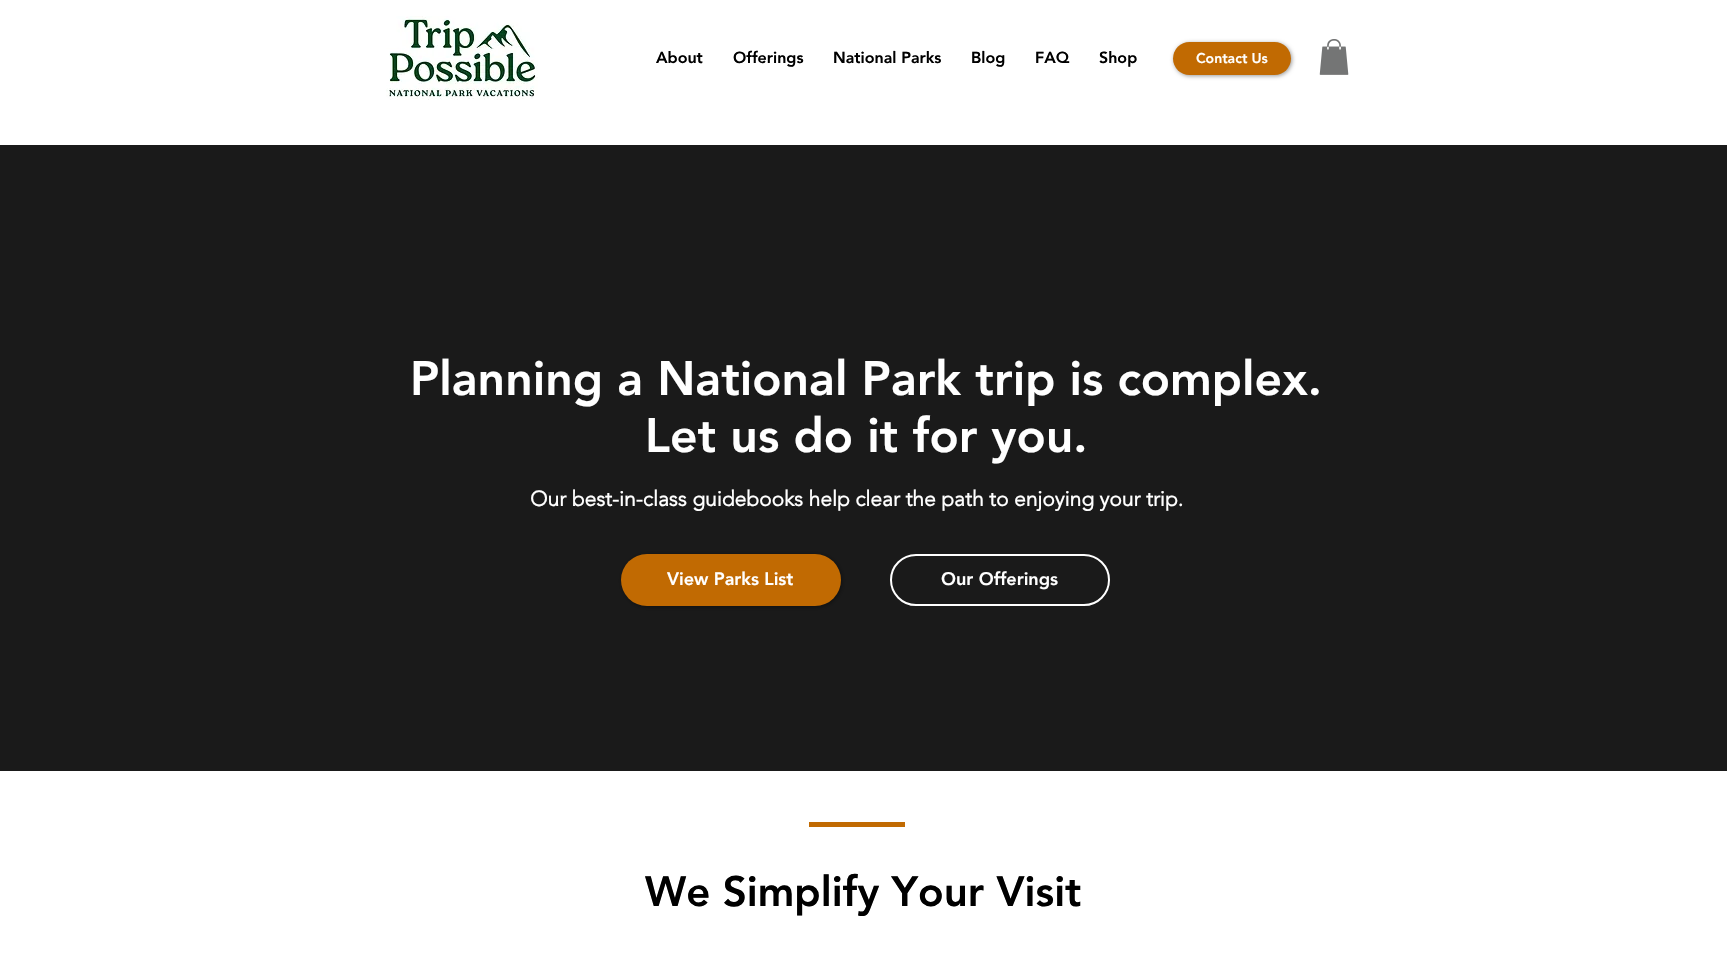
void draw(SkCanvas* canvas) {
	SkPaint paint;
	paint.setAntiAlias(true);
	canvas->clear(0xffffffff);
	canvas->drawImageRect(SkImages::DeferredFromEncodedData(SkData::MakeFromFileName("img1.png")), SkRect::MakeXYWH(386, 16, 152, 84), SkSamplingOptions());
	SkFont f1(fontMgr->matchFamilyStyle("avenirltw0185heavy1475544", SkFontStyle(900, SkFontStyle::kNormal_Width, SkFontStyle::kUpright_Slant)), 16);
	f1.setSubpixel(true);
	paint.setColor(0xff000000);
	canvas->drawString("About", 656, 63, f1, paint);
	canvas->drawString("Offerings", 733, 63, f1, paint);
	canvas->drawString("National Parks", 833, 63, f1, paint);
	canvas->drawString("Blog", 971, 63, f1, paint);
	canvas->drawString("FAQ", 1035, 63, f1, paint);
	canvas->drawString("Shop", 1099, 63, f1, paint);
	paint.setColor(0x66000000);
	paint.setMaskFilter(SkMaskFilter::MakeBlur(kNormal_SkBlurStyle, 2));
	canvas->drawRoundRect(SkRect::MakeXYWH(1174, 43, 118, 33), 16.5, 16.5, paint);
	paint.setMaskFilter(nullptr);
	paint.setColor(0xffc16a02);
	canvas->drawRoundRect(SkRect::MakeXYWH(1173, 42, 118, 33), 16.5, 16.5, paint);
	SkFont f2(fontMgr->matchFamilyStyle("avenirltw0185heavy1475544", SkFontStyle(900, SkFontStyle::kNormal_Width, SkFontStyle::kUpright_Slant)), 14);
	f2.setSubpixel(true);
	paint.setColor(0xffffffff);
	canvas->drawString("Contact Us", 1196, 63, f2, paint);
	canvas->drawImageRect(SkImages::DeferredFromEncodedData(SkData::MakeFromFileName("img2.png")), SkRect::MakeXYWH(1319, 39, 30, 36), SkSamplingOptions());
	paint.setColor(0xff1a1a1a);
	canvas->drawRect(SkRect::MakeXYWH(0, 145, 1727, 626), paint);
	SkFont f3(fontMgr->matchFamilyStyle("avenirltw0185heavy1475544", SkFontStyle(900, SkFontStyle::kNormal_Width, SkFontStyle::kUpright_Slant)), 48);
	f3.setSubpixel(true);
	paint.setColor(0xffffffff);
	canvas->drawString("Planning a National Park trip is complex.", 410, 395, f3, paint);
	canvas->drawString("Let us do it for you.", 645, 452, f3, paint);
	SkFont f4(fontMgr->matchFamilyStyle("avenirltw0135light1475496", SkFontStyle::Bold()), 21);
	f4.setSubpixel(true);
	canvas->drawString("Our best-in-class guidebooks help clear the path to enjoying your trip.", 530, 506, f4, paint);
	paint.setColor(0x66000000);
	paint.setMaskFilter(SkMaskFilter::MakeBlur(kNormal_SkBlurStyle, 2));
	canvas->drawRoundRect(SkRect::MakeXYWH(622, 555, 220, 52), 26, 26, paint);
	paint.setMaskFilter(nullptr);
	paint.setColor(0xffc16a02);
	canvas->drawRoundRect(SkRect::MakeXYWH(621, 554, 220, 52), 26, 26, paint);
	SkFont f5(fontMgr->matchFamilyStyle("avenirltw0185heavy1475544", SkFontStyle(900, SkFontStyle::kNormal_Width, SkFontStyle::kUpright_Slant)), 18);
	f5.setSubpixel(true);
	paint.setColor(0xffffffff);
	canvas->drawString("View Parks List", 667, 585, f5, paint);
	paint.setStroke(true);
	paint.setStrokeWidth(2);
	canvas->drawRoundRect(SkRect::MakeXYWH(891, 555, 218, 50), 25, 25, paint);
	paint.setStroke(false);
	canvas->drawString("Our Offerings", 941, 585, f5, paint);
	paint.setColor(0xffc16a02);
	canvas->drawRect(SkRect::MakeXYWH(809, 822, 96, 5), paint);
	SkFont f6(fontMgr->matchFamilyStyle("avenirltw0185heavy1475544", SkFontStyle(900, SkFontStyle::kNormal_Width, SkFontStyle::kUpright_Slant)), 42);
	f6.setSubpixel(true);
	paint.setColor(0xff000000);
	canvas->drawString("We Simplify Your Visit", 645, 906, f6, paint);
}
